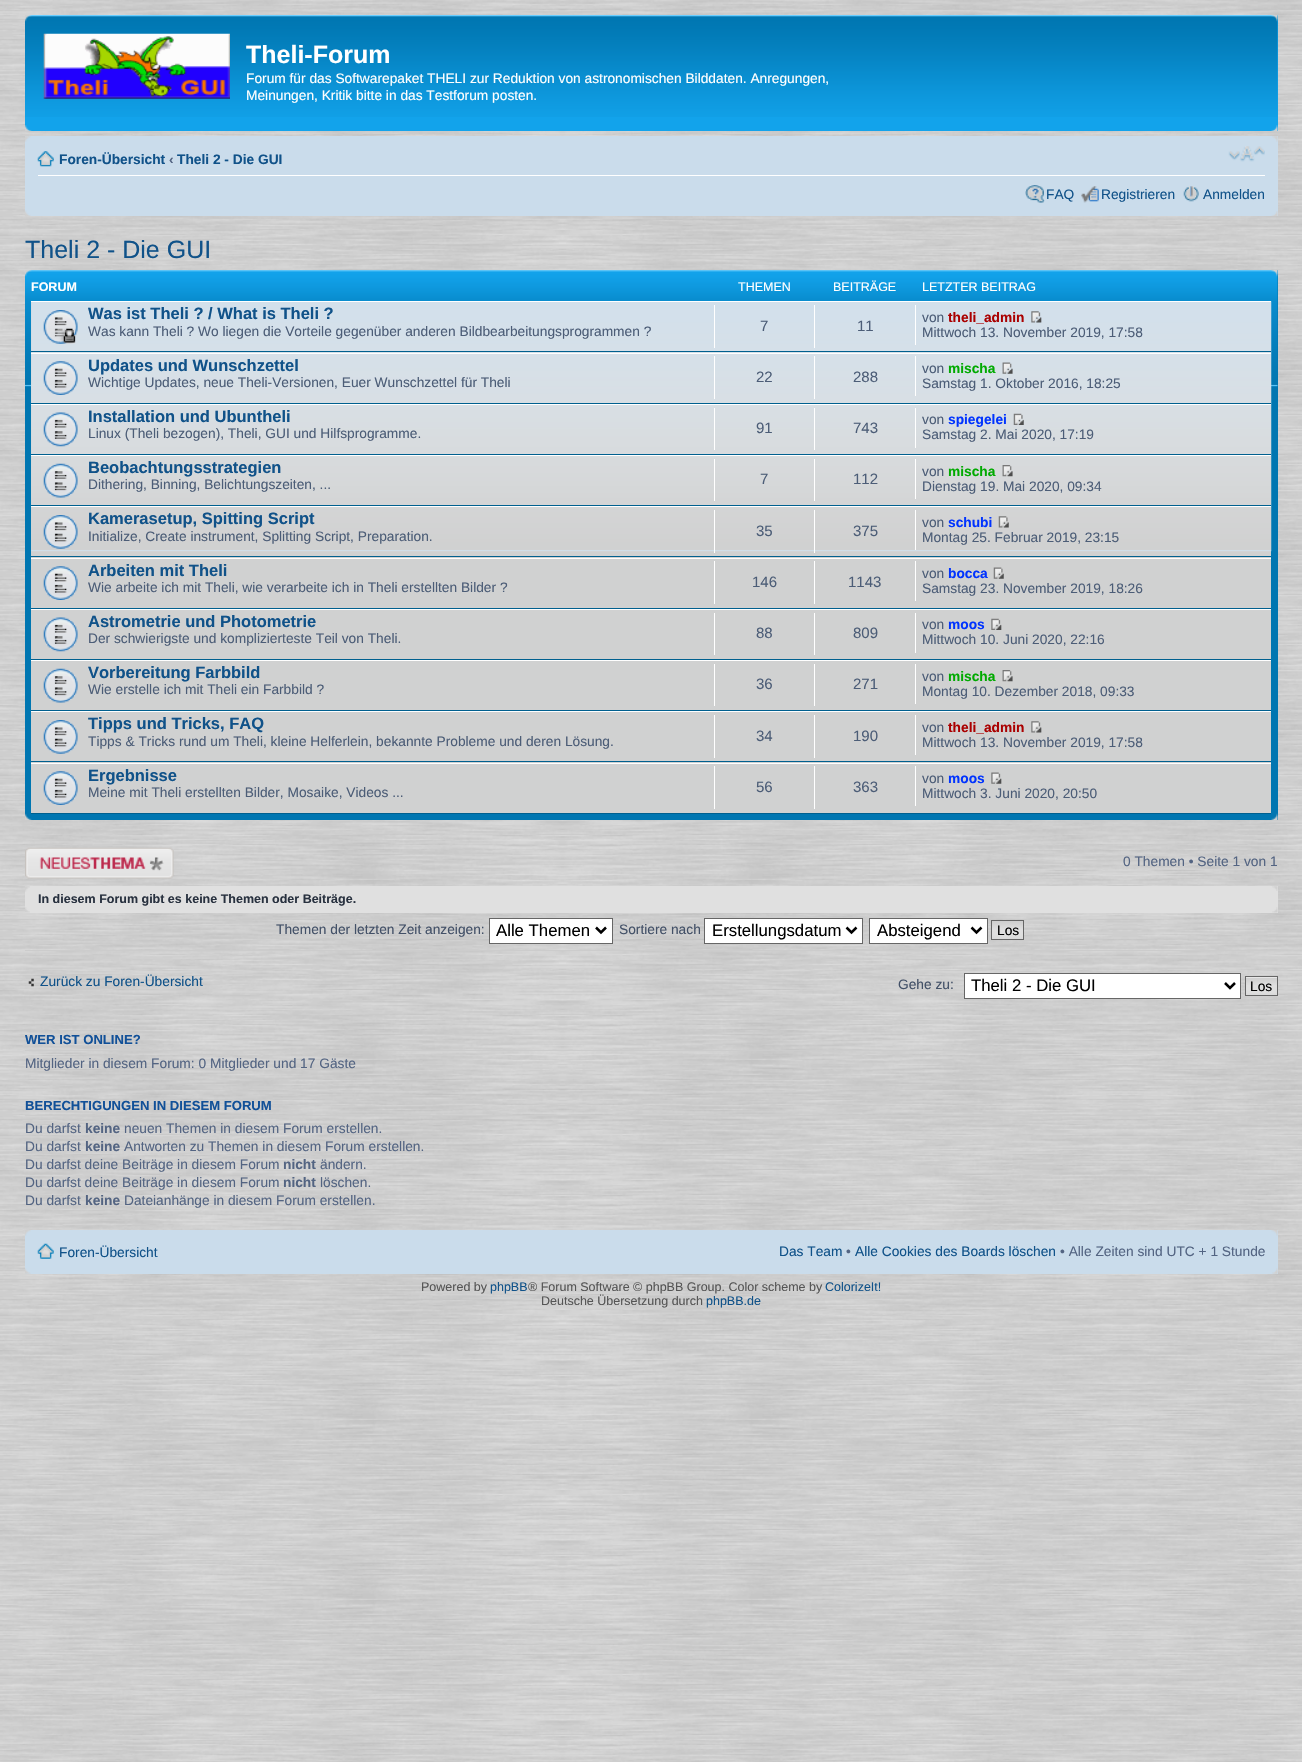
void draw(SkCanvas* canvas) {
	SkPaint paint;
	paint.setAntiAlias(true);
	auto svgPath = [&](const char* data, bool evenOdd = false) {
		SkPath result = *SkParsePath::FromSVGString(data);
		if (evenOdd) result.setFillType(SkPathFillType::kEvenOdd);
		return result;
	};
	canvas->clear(0xffffffff);
	canvas->drawImageRect(SkImages::DeferredFromEncodedData(SkData::MakeFromFileName("img1.png")), SkRect::MakeXYWH(0, 1343, 1302, 419), SkSamplingOptions());
	canvas->drawImageRect(SkImages::DeferredFromEncodedData(SkData::MakeFromFileName("img2.png")), SkRect::MakeXYWH(0, 0, 1302, 1343), SkSamplingOptions());
	paint.setColor(0xff12a3eb);
	canvas->drawRect(SkRect::MakeXYWH(25, 15, 1253, 116), paint);
	canvas->drawImageRect(SkImages::DeferredFromEncodedData(SkData::MakeFromFileName("img3.png")), SkRect::MakeXYWH(25, 15, 1253, 102), SkSamplingOptions());
	canvas->drawImageRect(SkImages::DeferredFromEncodedData(SkData::MakeFromFileName("img4.png")), SkRect::MakeXYWH(25, 15, 7, 7), SkSamplingOptions());
	canvas->drawImageRect(SkImages::DeferredFromEncodedData(SkData::MakeFromFileName("img5.png")), SkRect::MakeXYWH(1271, 15, 7, 7), SkSamplingOptions());
	canvas->drawImageRect(SkImages::DeferredFromEncodedData(SkData::MakeFromFileName("img6.png")), SkRect::MakeXYWH(43, 33, 187, 66), SkSamplingOptions());
	SkFont f1(fontMgr->matchFamilyStyle("Liberation Sans", SkFontStyle::Bold()), 25);
	f1.setSubpixel(true);
	paint.setColor(0xffffffff);
	canvas->drawString("Theli-Forum", 246, 63, f1, paint);
	SkFont f2(fontMgr->matchFamilyStyle("Liberation Sans", SkFontStyle::Normal()), 13.75);
	f2.setSubpixel(true);
	canvas->drawString("Forum für das Softwarepaket THELI zur Reduktion von astronomischen Bilddaten. Anregungen,", 246, 83, f2, paint);
	canvas->drawString("Meinungen, Kritik bitte in das Testforum posten.", 246, 100, f2, paint);
	canvas->drawImageRect(SkImages::DeferredFromEncodedData(SkData::MakeFromFileName("img7.png")), SkRect::MakeXYWH(25, 125, 7, 6), SkSamplingOptions());
	canvas->drawImageRect(SkImages::DeferredFromEncodedData(SkData::MakeFromFileName("img8.png")), SkRect::MakeXYWH(1271, 125, 7, 6), SkSamplingOptions());
	paint.setColor(0xffcadceb);
	canvas->drawRect(SkRect::MakeXYWH(25, 136, 1253, 80), paint);
	canvas->drawImageRect(SkImages::DeferredFromEncodedData(SkData::MakeFromFileName("img9.png")), SkRect::MakeXYWH(25, 136, 6, 6), SkSamplingOptions());
	canvas->drawImageRect(SkImages::DeferredFromEncodedData(SkData::MakeFromFileName("img10.png")), SkRect::MakeXYWH(1272, 136, 6, 6), SkSamplingOptions());
	paint.setColor(0xffffffff);
	canvas->drawRect(SkRect::MakeXYWH(38, 175, 1227, 1), paint);
	canvas->drawImageRect(SkImages::DeferredFromEncodedData(SkData::MakeFromFileName("img11.png")), SkRect::MakeXYWH(37, 151, 17, 16), SkSamplingOptions());
	SkFont f3(fontMgr->matchFamilyStyle("Liberation Sans", SkFontStyle::Bold()), 13.75);
	f3.setSubpixel(true);
	paint.setColor(0xff105289);
	canvas->drawString("Foren-Übersicht", 59, 164, f3, paint);
	paint.setColor(0xff536482);
	canvas->drawString("‹", 169, 164, f3, paint);
	paint.setColor(0xff105289);
	canvas->drawString("Theli 2 - Die GUI", 177, 164, f3, paint);
	canvas->drawImageRect(SkImages::DeferredFromEncodedData(SkData::MakeFromFileName("img12.png")), SkRect::MakeXYWH(1228, 146, 37, 16), SkSamplingOptions());
	canvas->drawImageRect(SkImages::DeferredFromEncodedData(SkData::MakeFromFileName("img13.png")), SkRect::MakeXYWH(1025, 185, 20, 18), SkSamplingOptions());
	canvas->drawString("FAQ", 1046, 199, f2, paint);
	canvas->drawImageRect(SkImages::DeferredFromEncodedData(SkData::MakeFromFileName("img14.png")), SkRect::MakeXYWH(1081, 186, 18, 17), SkSamplingOptions());
	canvas->drawString("Registrieren", 1101, 199, f2, paint);
	canvas->drawImageRect(SkImages::DeferredFromEncodedData(SkData::MakeFromFileName("img15.png")), SkRect::MakeXYWH(1183, 186, 16, 16), SkSamplingOptions());
	canvas->drawString("Anmelden", 1203, 199, f2, paint);
	canvas->drawImageRect(SkImages::DeferredFromEncodedData(SkData::MakeFromFileName("img16.png")), SkRect::MakeXYWH(25, 210, 6, 6), SkSamplingOptions());
	canvas->drawImageRect(SkImages::DeferredFromEncodedData(SkData::MakeFromFileName("img17.png")), SkRect::MakeXYWH(1271, 211, 7, 5), SkSamplingOptions());
	SkFont f4(fontMgr->matchFamilyStyle("Liberation Sans", SkFontStyle::Normal()), 25);
	f4.setSubpixel(true);
	canvas->drawString("Theli 2 - Die GUI", 25, 258, f4, paint);
	paint.setColor(0xff0076b1);
	canvas->drawRect(SkRect::MakeXYWH(25, 270, 1253, 550), paint);
	canvas->drawImageRect(SkImages::DeferredFromEncodedData(SkData::MakeFromFileName("img18.png")), SkRect::MakeXYWH(25, 270, 1253, 117), SkSamplingOptions());
	canvas->drawImageRect(SkImages::DeferredFromEncodedData(SkData::MakeFromFileName("img19.png")), SkRect::MakeXYWH(25, 270, 7, 7), SkSamplingOptions());
	canvas->drawImageRect(SkImages::DeferredFromEncodedData(SkData::MakeFromFileName("img20.png")), SkRect::MakeXYWH(1271, 270, 7, 7), SkSamplingOptions());
	SkFont f5(fontMgr->matchFamilyStyle("Liberation Sans", SkFontStyle::Bold()), 12.5);
	f5.setSubpixel(true);
	paint.setColor(0xffffffff);
	canvas->drawString("FORUM", 31, 291, f5, paint);
	SkFont f6(fontMgr->matchFamilyStyle("Liberation Sans", SkFontStyle::Normal()), 12.5);
	f6.setSubpixel(true);
	canvas->drawString("THEMEN", 738, 291, f6, paint);
	canvas->drawString("BEITRÄGE", 833, 291, f6, paint);
	canvas->drawString("LETZTER BEITRAG", 922, 291, f6, paint);
	paint.setColor(0xffd0d1d1);
	canvas->drawRect(SkRect::MakeXYWH(31, 302, 1240, 511), paint);
	canvas->drawImageRect(SkImages::DeferredFromEncodedData(SkData::MakeFromFileName("img21.png")), SkRect::MakeXYWH(31, 301, 1241, 251), SkSamplingOptions());
	paint.setColor(0xffffffff);
	canvas->drawRect(SkRect::MakeXYWH(31, 301, 1240, 1), paint);
	paint.setColor(0xff00608f);
	canvas->drawRect(SkRect::MakeXYWH(31, 351, 1240, 1), paint);
	canvas->drawImageRect(SkImages::DeferredFromEncodedData(SkData::MakeFromFileName("img22.png")), SkRect::MakeXYWH(43, 310, 35, 34), SkSamplingOptions());
	SkFont f7(fontMgr->matchFamilyStyle("Liberation Sans", SkFontStyle::Bold()), 16.5);
	f7.setSubpixel(true);
	paint.setColor(0xff105289);
	canvas->drawString("Was ist Theli ? / What is Theli ?", 88, 319, f7, paint);
	paint.setColor(0xff4c5d77);
	canvas->drawString("Was kann Theli ? Wo liegen die Vorteile gegenüber anderen Bildbearbeitungsprogrammen ?", 88, 336, f2, paint);
	paint.setColor(0xffffffff);
	canvas->drawRect(SkRect::MakeXYWH(714, 305, 1, 43), paint);
	SkFont f8(fontMgr->matchFamilyStyle("Liberation Sans", SkFontStyle::Normal()), 15);
	f8.setSubpixel(true);
	paint.setColor(0xff4c5d77);
	canvas->drawString("7", 760, 331, f8, paint);
	paint.setColor(0xffffffff);
	canvas->drawRect(SkRect::MakeXYWH(814, 305, 1, 43), paint);
	paint.setColor(0xff4c5d77);
	canvas->drawString("11", 857, 331, f8, paint);
	paint.setColor(0xffffffff);
	canvas->drawRect(SkRect::MakeXYWH(915, 305, 1, 40), paint);
	paint.setColor(0xff4c5d77);
	canvas->drawString("von", 922, 322, f2, paint);
	paint.setColor(0xffaa0000);
	canvas->drawString("theli_admin", 948, 322, f3, paint);
	canvas->drawImageRect(SkImages::DeferredFromEncodedData(SkData::MakeFromFileName("img23.png")), SkRect::MakeXYWH(1031, 311, 11, 12), SkSamplingOptions());
	paint.setColor(0xff4c5d77);
	canvas->drawString("Mittwoch 13. November 2019, 17:58", 922, 337, f2, paint);
	paint.setColor(0xffffffff);
	canvas->drawRect(SkRect::MakeXYWH(31, 353, 1240, 1), paint);
	paint.setColor(0xff00608f);
	canvas->drawRect(SkRect::MakeXYWH(31, 403, 1240, 1), paint);
	canvas->drawImageRect(SkImages::DeferredFromEncodedData(SkData::MakeFromFileName("img24.png")), SkRect::MakeXYWH(43, 361, 35, 34), SkSamplingOptions());
	paint.setColor(0xff105289);
	canvas->drawString("Updates und Wunschzettel", 88, 371, f7, paint);
	paint.setColor(0xff4c5d77);
	canvas->drawString("Wichtige Updates, neue Theli-Versionen, Euer Wunschzettel für Theli", 88, 387, f2, paint);
	paint.setColor(0xffffffff);
	canvas->drawRect(SkRect::MakeXYWH(714, 356, 1, 43), paint);
	paint.setColor(0xff4c5d77);
	canvas->drawString("22", 756, 382, f8, paint);
	paint.setColor(0xffffffff);
	canvas->drawRect(SkRect::MakeXYWH(814, 356, 1, 43), paint);
	paint.setColor(0xff4c5d77);
	canvas->drawString("288", 853, 382, f8, paint);
	paint.setColor(0xffffffff);
	canvas->drawRect(SkRect::MakeXYWH(915, 356, 1, 40), paint);
	paint.setColor(0xff4c5d77);
	canvas->drawString("von", 922, 373, f2, paint);
	paint.setColor(0xff00aa00);
	canvas->drawString("mischa", 948, 373, f3, paint);
	canvas->drawImageRect(SkImages::DeferredFromEncodedData(SkData::MakeFromFileName("img25.png")), SkRect::MakeXYWH(1002, 362, 11, 12), SkSamplingOptions());
	paint.setColor(0xff4c5d77);
	canvas->drawString("Samstag 1. Oktober 2016, 18:25", 922, 388, f2, paint);
	paint.setColor(0xffffffff);
	canvas->drawRect(SkRect::MakeXYWH(31, 404, 1240, 1), paint);
	paint.setColor(0xff00608f);
	canvas->drawRect(SkRect::MakeXYWH(31, 454, 1240, 1), paint);
	canvas->drawImageRect(SkImages::DeferredFromEncodedData(SkData::MakeFromFileName("img26.png")), SkRect::MakeXYWH(43, 412, 35, 35), SkSamplingOptions());
	paint.setColor(0xff105289);
	canvas->drawString("Installation und Ubuntheli", 88, 422, f7, paint);
	paint.setColor(0xff4c5d77);
	canvas->drawString("Linux (Theli bezogen), Theli, GUI und Hilfsprogramme.", 88, 438, f2, paint);
	paint.setColor(0xffffffff);
	canvas->drawRect(SkRect::MakeXYWH(714, 408, 1, 42), paint);
	paint.setColor(0xff4c5d77);
	canvas->drawString("91", 756, 433, f8, paint);
	paint.setColor(0xffffffff);
	canvas->drawRect(SkRect::MakeXYWH(814, 408, 1, 42), paint);
	paint.setColor(0xff4c5d77);
	canvas->drawString("743", 853, 433, f8, paint);
	paint.setColor(0xffffffff);
	canvas->drawRect(SkRect::MakeXYWH(915, 408, 1, 40), paint);
	paint.setColor(0xff4c5d77);
	canvas->drawString("von", 922, 424, f2, paint);
	paint.setColor(0xff0033ff);
	canvas->drawString("spiegelei", 948, 424, f3, paint);
	canvas->drawImageRect(SkImages::DeferredFromEncodedData(SkData::MakeFromFileName("img27.png")), SkRect::MakeXYWH(1013, 413, 11, 12), SkSamplingOptions());
	paint.setColor(0xff4c5d77);
	canvas->drawString("Samstag 2. Mai 2020, 17:19", 922, 439, f2, paint);
	paint.setColor(0xffffffff);
	canvas->drawRect(SkRect::MakeXYWH(31, 455, 1240, 1), paint);
	paint.setColor(0xff00608f);
	canvas->drawRect(SkRect::MakeXYWH(31, 505, 1240, 1), paint);
	canvas->drawImageRect(SkImages::DeferredFromEncodedData(SkData::MakeFromFileName("img28.png")), SkRect::MakeXYWH(43, 463, 35, 35), SkSamplingOptions());
	paint.setColor(0xff105289);
	canvas->drawString("Beobachtungsstrategien", 88, 473, f7, paint);
	paint.setColor(0xff4c5d77);
	canvas->drawString("Dithering, Binning, Belichtungszeiten, ...", 88, 489, f2, paint);
	paint.setColor(0xffffffff);
	canvas->drawRect(SkRect::MakeXYWH(714, 459, 1, 42), paint);
	paint.setColor(0xff4c5d77);
	canvas->drawString("7", 760, 484, f8, paint);
	paint.setColor(0xffffffff);
	canvas->drawRect(SkRect::MakeXYWH(814, 459, 1, 42), paint);
	paint.setColor(0xff4c5d77);
	canvas->drawString("112", 853, 484, f8, paint);
	paint.setColor(0xffffffff);
	canvas->drawRect(SkRect::MakeXYWH(915, 459, 1, 40), paint);
	paint.setColor(0xff4c5d77);
	canvas->drawString("von", 922, 476, f2, paint);
	paint.setColor(0xff00aa00);
	canvas->drawString("mischa", 948, 476, f3, paint);
	canvas->drawImageRect(SkImages::DeferredFromEncodedData(SkData::MakeFromFileName("img29.png")), SkRect::MakeXYWH(1002, 465, 11, 12), SkSamplingOptions());
	paint.setColor(0xff4c5d77);
	canvas->drawString("Dienstag 19. Mai 2020, 09:34", 922, 491, f2, paint);
	paint.setColor(0xffffffff);
	canvas->drawRect(SkRect::MakeXYWH(31, 506, 1240, 1), paint);
	paint.setColor(0xff00608f);
	canvas->drawRect(SkRect::MakeXYWH(31, 556, 1240, 1), paint);
	canvas->drawImageRect(SkImages::DeferredFromEncodedData(SkData::MakeFromFileName("img30.png")), SkRect::MakeXYWH(43, 515, 35, 34), SkSamplingOptions());
	paint.setColor(0xff105289);
	canvas->drawString("Kamerasetup, Spitting Script", 88, 524, f7, paint);
	paint.setColor(0xff4c5d77);
	canvas->drawString("Initialize, Create instrument, Splitting Script, Preparation.", 88, 541, f2, paint);
	paint.setColor(0xffffffff);
	canvas->drawRect(SkRect::MakeXYWH(714, 510, 1, 43), paint);
	paint.setColor(0xff4c5d77);
	canvas->drawString("35", 756, 536, f8, paint);
	paint.setColor(0xffffffff);
	canvas->drawRect(SkRect::MakeXYWH(814, 510, 1, 43), paint);
	paint.setColor(0xff4c5d77);
	canvas->drawString("375", 853, 536, f8, paint);
	paint.setColor(0xffffffff);
	canvas->drawRect(SkRect::MakeXYWH(915, 510, 1, 40), paint);
	paint.setColor(0xff4c5d77);
	canvas->drawString("von", 922, 527, f2, paint);
	paint.setColor(0xff0033ff);
	canvas->drawString("schubi", 948, 527, f3, paint);
	canvas->drawImageRect(SkImages::DeferredFromEncodedData(SkData::MakeFromFileName("img31.png")), SkRect::MakeXYWH(998, 516, 11, 12), SkSamplingOptions());
	paint.setColor(0xff4c5d77);
	canvas->drawString("Montag 25. Februar 2019, 23:15", 922, 542, f2, paint);
	paint.setColor(0xffffffff);
	canvas->drawRect(SkRect::MakeXYWH(31, 558, 1240, 1), paint);
	paint.setColor(0xff00608f);
	canvas->drawRect(SkRect::MakeXYWH(31, 608, 1240, 1), paint);
	canvas->drawImageRect(SkImages::DeferredFromEncodedData(SkData::MakeFromFileName("img32.png")), SkRect::MakeXYWH(43, 566, 35, 34), SkSamplingOptions());
	paint.setColor(0xff105289);
	canvas->drawString("Arbeiten mit Theli", 88, 576, f7, paint);
	paint.setColor(0xff4c5d77);
	canvas->drawString("Wie arbeite ich mit Theli, wie verarbeite ich in Theli erstellten Bilder ?", 88, 592, f2, paint);
	paint.setColor(0xffffffff);
	canvas->drawRect(SkRect::MakeXYWH(714, 561, 1, 43), paint);
	paint.setColor(0xff4c5d77);
	canvas->drawString("146", 752, 587, f8, paint);
	paint.setColor(0xffffffff);
	canvas->drawRect(SkRect::MakeXYWH(814, 561, 1, 43), paint);
	paint.setColor(0xff4c5d77);
	canvas->drawString("1143", 848, 587, f8, paint);
	paint.setColor(0xffffffff);
	canvas->drawRect(SkRect::MakeXYWH(915, 561, 1, 40), paint);
	paint.setColor(0xff4c5d77);
	canvas->drawString("von", 922, 578, f2, paint);
	paint.setColor(0xff0033ff);
	canvas->drawString("bocca", 948, 578, f3, paint);
	canvas->drawImageRect(SkImages::DeferredFromEncodedData(SkData::MakeFromFileName("img33.png")), SkRect::MakeXYWH(993, 567, 11, 12), SkSamplingOptions());
	paint.setColor(0xff4c5d77);
	canvas->drawString("Samstag 23. November 2019, 18:26", 922, 593, f2, paint);
	paint.setColor(0xffffffff);
	canvas->drawRect(SkRect::MakeXYWH(31, 609, 1240, 1), paint);
	paint.setColor(0xff00608f);
	canvas->drawRect(SkRect::MakeXYWH(31, 659, 1240, 1), paint);
	canvas->drawImageRect(SkImages::DeferredFromEncodedData(SkData::MakeFromFileName("img34.png")), SkRect::MakeXYWH(43, 617, 35, 35), SkSamplingOptions());
	paint.setColor(0xff105289);
	canvas->drawString("Astrometrie und Photometrie", 88, 627, f7, paint);
	paint.setColor(0xff4c5d77);
	canvas->drawString("Der schwierigste und komplizierteste Teil von Theli.", 88, 643, f2, paint);
	paint.setColor(0xffffffff);
	canvas->drawRect(SkRect::MakeXYWH(714, 613, 1, 42), paint);
	paint.setColor(0xff4c5d77);
	canvas->drawString("88", 756, 638, f8, paint);
	paint.setColor(0xffffffff);
	canvas->drawRect(SkRect::MakeXYWH(814, 613, 1, 42), paint);
	paint.setColor(0xff4c5d77);
	canvas->drawString("809", 853, 638, f8, paint);
	paint.setColor(0xffffffff);
	canvas->drawRect(SkRect::MakeXYWH(915, 613, 1, 40), paint);
	paint.setColor(0xff4c5d77);
	canvas->drawString("von", 922, 629, f2, paint);
	paint.setColor(0xff0033ff);
	canvas->drawString("moos", 948, 629, f3, paint);
	canvas->drawImageRect(SkImages::DeferredFromEncodedData(SkData::MakeFromFileName("img35.png")), SkRect::MakeXYWH(991, 618, 11, 12), SkSamplingOptions());
	paint.setColor(0xff4c5d77);
	canvas->drawString("Mittwoch 10. Juni 2020, 22:16", 922, 644, f2, paint);
	paint.setColor(0xffffffff);
	canvas->drawRect(SkRect::MakeXYWH(31, 660, 1240, 1), paint);
	paint.setColor(0xff00608f);
	canvas->drawRect(SkRect::MakeXYWH(31, 710, 1240, 1), paint);
	canvas->drawImageRect(SkImages::DeferredFromEncodedData(SkData::MakeFromFileName("img36.png")), SkRect::MakeXYWH(43, 668, 35, 35), SkSamplingOptions());
	paint.setColor(0xff105289);
	canvas->drawString("Vorbereitung Farbbild", 88, 678, f7, paint);
	paint.setColor(0xff4c5d77);
	canvas->drawString("Wie erstelle ich mit Theli ein Farbbild ?", 88, 694, f2, paint);
	paint.setColor(0xffffffff);
	canvas->drawRect(SkRect::MakeXYWH(714, 664, 1, 42), paint);
	paint.setColor(0xff4c5d77);
	canvas->drawString("36", 756, 689, f8, paint);
	paint.setColor(0xffffffff);
	canvas->drawRect(SkRect::MakeXYWH(814, 664, 1, 42), paint);
	paint.setColor(0xff4c5d77);
	canvas->drawString("271", 853, 689, f8, paint);
	paint.setColor(0xffffffff);
	canvas->drawRect(SkRect::MakeXYWH(915, 664, 1, 40), paint);
	paint.setColor(0xff4c5d77);
	canvas->drawString("von", 922, 681, f2, paint);
	paint.setColor(0xff00aa00);
	canvas->drawString("mischa", 948, 681, f3, paint);
	canvas->drawImageRect(SkImages::DeferredFromEncodedData(SkData::MakeFromFileName("img37.png")), SkRect::MakeXYWH(1002, 670, 11, 12), SkSamplingOptions());
	paint.setColor(0xff4c5d77);
	canvas->drawString("Montag 10. Dezember 2018, 09:33", 922, 696, f2, paint);
	paint.setColor(0xffffffff);
	canvas->drawRect(SkRect::MakeXYWH(31, 711, 1240, 1), paint);
	paint.setColor(0xff00608f);
	canvas->drawRect(SkRect::MakeXYWH(31, 761, 1240, 1), paint);
	canvas->drawImageRect(SkImages::DeferredFromEncodedData(SkData::MakeFromFileName("img38.png")), SkRect::MakeXYWH(43, 720, 35, 34), SkSamplingOptions());
	paint.setColor(0xff105289);
	canvas->drawString("Tipps und Tricks, FAQ", 88, 729, f7, paint);
	paint.setColor(0xff4c5d77);
	canvas->drawString("Tipps & Tricks rund um Theli, kleine Helferlein, bekannte Probleme und deren Lösung.", 88, 746, f2, paint);
	paint.setColor(0xffffffff);
	canvas->drawRect(SkRect::MakeXYWH(714, 715, 1, 43), paint);
	paint.setColor(0xff4c5d77);
	canvas->drawString("34", 756, 741, f8, paint);
	paint.setColor(0xffffffff);
	canvas->drawRect(SkRect::MakeXYWH(814, 715, 1, 43), paint);
	paint.setColor(0xff4c5d77);
	canvas->drawString("190", 853, 741, f8, paint);
	paint.setColor(0xffffffff);
	canvas->drawRect(SkRect::MakeXYWH(915, 715, 1, 40), paint);
	paint.setColor(0xff4c5d77);
	canvas->drawString("von", 922, 732, f2, paint);
	paint.setColor(0xffaa0000);
	canvas->drawString("theli_admin", 948, 732, f3, paint);
	canvas->drawImageRect(SkImages::DeferredFromEncodedData(SkData::MakeFromFileName("img39.png")), SkRect::MakeXYWH(1031, 721, 11, 12), SkSamplingOptions());
	paint.setColor(0xff4c5d77);
	canvas->drawString("Mittwoch 13. November 2019, 17:58", 922, 747, f2, paint);
	paint.setColor(0xffffffff);
	canvas->drawRect(SkRect::MakeXYWH(31, 763, 1240, 1), paint);
	paint.setColor(0xff00608f);
	canvas->drawRect(SkRect::MakeXYWH(31, 813, 1240, 1), paint);
	canvas->drawImageRect(SkImages::DeferredFromEncodedData(SkData::MakeFromFileName("img40.png")), SkRect::MakeXYWH(43, 771, 35, 34), SkSamplingOptions());
	paint.setColor(0xff105289);
	canvas->drawString("Ergebnisse", 88, 781, f7, paint);
	paint.setColor(0xff4c5d77);
	canvas->drawString("Meine mit Theli erstellten Bilder, Mosaike, Videos ...", 88, 797, f2, paint);
	paint.setColor(0xffffffff);
	canvas->drawRect(SkRect::MakeXYWH(714, 766, 1, 43), paint);
	paint.setColor(0xff4c5d77);
	canvas->drawString("56", 756, 792, f8, paint);
	paint.setColor(0xffffffff);
	canvas->drawRect(SkRect::MakeXYWH(814, 766, 1, 43), paint);
	paint.setColor(0xff4c5d77);
	canvas->drawString("363", 853, 792, f8, paint);
	paint.setColor(0xffffffff);
	canvas->drawRect(SkRect::MakeXYWH(915, 766, 1, 40), paint);
	paint.setColor(0xff4c5d77);
	canvas->drawString("von", 922, 783, f2, paint);
	paint.setColor(0xff0033ff);
	canvas->drawString("moos", 948, 783, f3, paint);
	canvas->drawImageRect(SkImages::DeferredFromEncodedData(SkData::MakeFromFileName("img41.png")), SkRect::MakeXYWH(991, 772, 11, 12), SkSamplingOptions());
	paint.setColor(0xff4c5d77);
	canvas->drawString("Mittwoch 3. Juni 2020, 20:50", 922, 798, f2, paint);
	canvas->drawImageRect(SkImages::DeferredFromEncodedData(SkData::MakeFromFileName("img42.png")), SkRect::MakeXYWH(25, 813, 7, 7), SkSamplingOptions());
	canvas->drawImageRect(SkImages::DeferredFromEncodedData(SkData::MakeFromFileName("img43.png")), SkRect::MakeXYWH(1271, 813, 7, 7), SkSamplingOptions());
	canvas->drawImageRect(SkImages::DeferredFromEncodedData(SkData::MakeFromFileName("img44.png")), SkRect::MakeXYWH(25, 847, 149, 32), SkSamplingOptions());
	paint.setColor(0xff536482);
	canvas->drawString("0 Themen • Seite 1 von 1", 1123, 866, f2, paint);
	paint.setColor(0xffe0e0e0);
	canvas->drawRect(SkRect::MakeXYWH(25, 886, 1253, 27), paint);
	canvas->drawImageRect(SkImages::DeferredFromEncodedData(SkData::MakeFromFileName("img45.png")), SkRect::MakeXYWH(25, 886, 5, 6), SkSamplingOptions());
	canvas->drawImageRect(SkImages::DeferredFromEncodedData(SkData::MakeFromFileName("img46.png")), SkRect::MakeXYWH(1272, 886, 6, 5), SkSamplingOptions());
	paint.setColor(0xff28313f);
	canvas->drawString("In diesem Forum gibt es keine Themen oder Beiträge.", 38, 903, f5, paint);
	canvas->drawImageRect(SkImages::DeferredFromEncodedData(SkData::MakeFromFileName("img47.png")), SkRect::MakeXYWH(25, 907, 5, 6), SkSamplingOptions());
	canvas->drawImageRect(SkImages::DeferredFromEncodedData(SkData::MakeFromFileName("img48.png")), SkRect::MakeXYWH(1272, 907, 6, 6), SkSamplingOptions());
	paint.setColor(0xff425067);
	canvas->drawString("Themen der letzten Zeit anzeigen:", 276, 934, f2, paint);
	paint.setColor(0xffffffff);
	canvas->drawRect(SkRect::MakeXYWH(489.5, 918.5, 123, 25), paint);
	paint.setStroke(true);
	paint.setStrokeWidth(1);
	paint.setColor(0xff666666);
	canvas->drawRect(SkRect::MakeXYWH(489.5, 918.5, 123, 25), paint);
	paint.setStrokeWidth(2.5);
	paint.setColor(0xff000000);
	canvas->drawPath(svgPath("M596 927.5L601 932.5L606 927.5"), paint);
	SkFont f9(fontMgr->matchFamilyStyle("Liberation Sans", SkFontStyle::Normal()), 16.75);
	f9.setSubpixel(true);
	paint.setStroke(false);
	canvas->drawString("Alle Themen", 496, 936, f9, paint);
	paint.setColor(0xff425067);
	canvas->drawString("Sortiere nach", 619, 934, f2, paint);
	paint.setColor(0xffffffff);
	canvas->drawRect(SkRect::MakeXYWH(704.5, 918.5, 158, 25), paint);
	paint.setStroke(true);
	paint.setStrokeWidth(1);
	paint.setColor(0xff666666);
	canvas->drawRect(SkRect::MakeXYWH(704.5, 918.5, 158, 25), paint);
	paint.setStrokeWidth(2.5);
	paint.setColor(0xff000000);
	canvas->drawPath(svgPath("M846.5 927.5L851.5 932.5L856.5 927.5"), paint);
	paint.setStroke(false);
	canvas->drawString("Erstellungsdatum", 712, 936, f9, paint);
	paint.setColor(0xffffffff);
	canvas->drawRect(SkRect::MakeXYWH(869.5, 918.5, 118, 25), paint);
	paint.setStroke(true);
	paint.setStrokeWidth(1);
	paint.setColor(0xff666666);
	canvas->drawRect(SkRect::MakeXYWH(869.5, 918.5, 118, 25), paint);
	paint.setStrokeWidth(2.5);
	paint.setColor(0xff000000);
	canvas->drawPath(svgPath("M971.5 927.5L976.5 932.5L981.5 927.5"), paint);
	paint.setStroke(false);
	canvas->drawString("Absteigend", 877, 936, f9, paint);
	canvas->drawImageRect(SkImages::DeferredFromEncodedData(SkData::MakeFromFileName("img49.png")), SkRect::MakeXYWH(992, 921, 31, 18), SkSamplingOptions());
	paint.setStroke(true);
	paint.setStrokeWidth(1);
	paint.setColor(0xff666666);
	canvas->drawRect(SkRect::MakeXYWH(991.5, 920.5, 32, 19), paint);
	paint.setStroke(false);
	paint.setColor(0xff000000);
	canvas->drawString("Los", 997, 935, f2, paint);
	paint.setColor(0xffcccccc);
	canvas->drawRect(SkRect::MakeXYWH(25, 950, 1253, 1), paint);
	canvas->drawImageRect(SkImages::DeferredFromEncodedData(SkData::MakeFromFileName("img50.png")), SkRect::MakeXYWH(28, 978, 6, 9), SkSamplingOptions());
	paint.setColor(0xff105289);
	canvas->drawString("Zurück zu Foren-Übersicht", 40, 986, f2, paint);
	paint.setColor(0xff425067);
	canvas->drawString("Gehe zu:", 898, 989, f2, paint);
	paint.setColor(0xffffffff);
	canvas->drawRect(SkRect::MakeXYWH(964.5, 973.5, 276, 25), paint);
	paint.setStroke(true);
	paint.setColor(0xff666666);
	canvas->drawRect(SkRect::MakeXYWH(964.5, 973.5, 276, 25), paint);
	paint.setStrokeWidth(2.5);
	paint.setColor(0xff000000);
	canvas->drawPath(svgPath("M1225 983L1230 988L1235 983"), paint);
	paint.setStroke(false);
	canvas->drawString("Theli 2 - Die GUI", 971, 991, f9, paint);
	paint.setColor(0xffffffff);
	canvas->drawRect(SkRect::MakeXYWH(1246, 977, 31, 1), paint);
	canvas->drawImageRect(SkImages::DeferredFromEncodedData(SkData::MakeFromFileName("img51.png")), SkRect::MakeXYWH(1246, 977, 31, 18), SkSamplingOptions());
	paint.setStroke(true);
	paint.setStrokeWidth(1);
	paint.setColor(0xff666666);
	canvas->drawRect(SkRect::MakeXYWH(1245.5, 976.5, 32, 19), paint);
	paint.setStroke(false);
	paint.setColor(0xff000000);
	canvas->drawString("Los", 1250, 991, f2, paint);
	paint.setColor(0xffcccccc);
	canvas->drawRect(SkRect::MakeXYWH(25, 1050, 1253, 1), paint);
	SkFont f10(fontMgr->matchFamilyStyle("Liberation Sans", SkFontStyle::Bold()), 13.1);
	f10.setSubpixel(true);
	paint.setColor(0xff115098);
	canvas->drawString("WER IST ONLINE?", 25, 1044, f10, paint);
	paint.setColor(0xff536482);
	canvas->drawString("Mitglieder in diesem Forum: 0 Mitglieder und 17 Gäste", 25, 1068, f2, paint);
	paint.setColor(0xffcccccc);
	canvas->drawRect(SkRect::MakeXYWH(25, 1115, 1243, 1), paint);
	paint.setColor(0xff115098);
	canvas->drawString("BERECHTIGUNGEN IN DIESEM FORUM", 25, 1110, f10, paint);
	paint.setColor(0xff536482);
	canvas->drawString("Du darfst", 25, 1133, f2, paint);
	canvas->drawString("keine", 85, 1133, f3, paint);
	canvas->drawString("neuen Themen in diesem Forum erstellen.", 124, 1133, f2, paint);
	canvas->drawString("Du darfst", 25, 1151, f2, paint);
	canvas->drawString("keine", 85, 1151, f3, paint);
	canvas->drawString("Antworten zu Themen in diesem Forum erstellen.", 124, 1151, f2, paint);
	canvas->drawString("Du darfst deine Beiträge in diesem Forum", 25, 1169, f2, paint);
	canvas->drawString("nicht", 283, 1169, f3, paint);
	canvas->drawString("ändern.", 320, 1169, f2, paint);
	canvas->drawString("Du darfst deine Beiträge in diesem Forum", 25, 1187, f2, paint);
	canvas->drawString("nicht", 283, 1187, f3, paint);
	canvas->drawString("löschen.", 320, 1187, f2, paint);
	canvas->drawString("Du darfst", 25, 1205, f2, paint);
	canvas->drawString("keine", 85, 1205, f3, paint);
	canvas->drawString("Dateianhänge in diesem Forum erstellen.", 124, 1205, f2, paint);
	paint.setColor(0xffcadceb);
	canvas->drawRect(SkRect::MakeXYWH(25, 1230, 1253, 44), paint);
	canvas->drawImageRect(SkImages::DeferredFromEncodedData(SkData::MakeFromFileName("img52.png")), SkRect::MakeXYWH(25, 1230, 6, 6), SkSamplingOptions());
	canvas->drawImageRect(SkImages::DeferredFromEncodedData(SkData::MakeFromFileName("img53.png")), SkRect::MakeXYWH(1271, 1230, 7, 6), SkSamplingOptions());
	canvas->drawImageRect(SkImages::DeferredFromEncodedData(SkData::MakeFromFileName("img54.png")), SkRect::MakeXYWH(37, 1243, 17, 16), SkSamplingOptions());
	paint.setColor(0xff105289);
	canvas->drawString("Foren-Übersicht", 59, 1257, f2, paint);
	canvas->drawString("Das Team", 779, 1256, f2, paint);
	paint.setColor(0xff536482);
	canvas->drawString("•", 846, 1256, f2, paint);
	paint.setColor(0xff105289);
	canvas->drawString("Alle Cookies des Boards löschen", 855, 1256, f2, paint);
	paint.setColor(0xff536482);
	canvas->drawString("• Alle Zeiten sind UTC + 1 Stunde", 1060, 1256, f2, paint);
	canvas->drawImageRect(SkImages::DeferredFromEncodedData(SkData::MakeFromFileName("img55.png")), SkRect::MakeXYWH(25, 1268, 6, 6), SkSamplingOptions());
	canvas->drawImageRect(SkImages::DeferredFromEncodedData(SkData::MakeFromFileName("img56.png")), SkRect::MakeXYWH(1272, 1268, 6, 6), SkSamplingOptions());
	paint.setColor(0xff555555);
	canvas->drawString("Powered by", 421, 1291, f6, paint);
	paint.setColor(0xff105289);
	canvas->drawString("phpBB", 490, 1291, f6, paint);
	paint.setColor(0xff555555);
	canvas->drawString("® Forum Software © phpBB Group. Color scheme by", 528, 1291, f6, paint);
	paint.setColor(0xff105289);
	canvas->drawString("ColorizeIt!", 825, 1291, f6, paint);
	paint.setColor(0xff555555);
	canvas->drawString("Deutsche Übersetzung durch", 541, 1305, f6, paint);
	paint.setColor(0xff105289);
	canvas->drawString("phpBB.de", 706, 1305, f6, paint);
}
